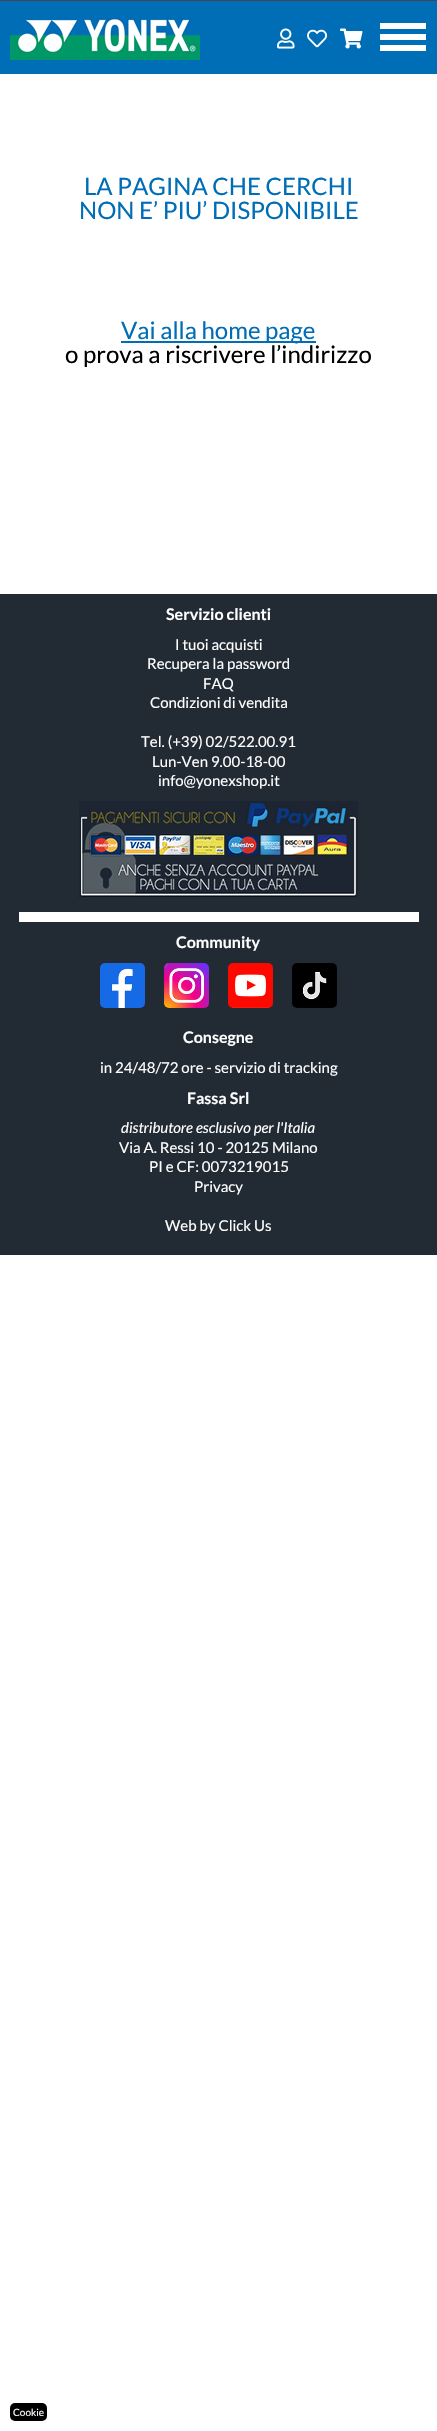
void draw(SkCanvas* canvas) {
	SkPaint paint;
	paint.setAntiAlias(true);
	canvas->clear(0xffffffff);
	paint.setColor(0xff43484e);
	canvas->drawRect(SkRect::MakeXYWH(0, 0, 437, 1), paint);
	paint.setColor(0xff006eb6);
	canvas->drawRect(SkRect::MakeXYWH(0, 1, 437, 73), paint);
	canvas->drawImageRect(SkImages::DeferredFromEncodedData(SkData::MakeFromFileName("img1.png")), SkRect::MakeXYWH(10, 11, 190, 49), SkSamplingOptions());
	canvas->drawImageRect(SkImages::DeferredFromEncodedData(SkData::MakeFromFileName("img2.png")), SkRect::MakeXYWH(277, 28, 18, 21), SkSamplingOptions());
	canvas->drawImageRect(SkImages::DeferredFromEncodedData(SkData::MakeFromFileName("img3.png")), SkRect::MakeXYWH(307, 29, 20, 19), SkSamplingOptions());
	canvas->drawImageRect(SkImages::DeferredFromEncodedData(SkData::MakeFromFileName("img4.png")), SkRect::MakeXYWH(340, 28, 23, 21), SkSamplingOptions());
	canvas->drawImageRect(SkImages::DeferredFromEncodedData(SkData::MakeFromFileName("img5.png")), SkRect::MakeXYWH(380, 23, 46, 28), SkSamplingOptions());
	SkFont f1(fontMgr->matchFamilyStyle("Lato", SkFontStyle::Normal()), 24);
	f1.setSubpixel(true);
	canvas->drawString("LA PAGINA CHE CERCHI", 84, 195, f1, paint);
	canvas->drawString("NON E’ PIU’ DISPONIBILE", 79, 219, f1, paint);
	canvas->drawRect(SkRect::MakeXYWH(121, 341, 195, 2), paint);
	canvas->drawString("Vai alla home page", 121, 339, f1, paint);
	paint.setColor(0xff000000);
	canvas->drawString("o prova a riscrivere l’indirizzo", 65, 363, f1, paint);
	paint.setColor(0xff222a34);
	canvas->drawRect(SkRect::MakeXYWH(0, 594, 437, 661), paint);
	SkFont f2(fontMgr->matchFamilyStyle("Lato", SkFontStyle::Bold()), 16);
	f2.setSubpixel(true);
	paint.setColor(0xffffffff);
	canvas->drawString("Servizio clienti", 166, 620, f2, paint);
	SkFont f3(fontMgr->matchFamilyStyle("Lato", SkFontStyle::Normal()), 15);
	f3.setSubpixel(true);
	canvas->drawString("I tuoi acquisti", 175, 650, f3, paint);
	canvas->drawString("Recupera la password", 147, 669, f3, paint);
	canvas->drawString("FAQ", 203, 689, f3, paint);
	canvas->drawString("Condizioni di vendita", 150, 708, f3, paint);
	canvas->drawString("Tel. (+39) 02/522.00.91", 141, 747, f3, paint);
	canvas->drawString("Lun-Ven 9.00-18-00", 152, 767, f3, paint);
	canvas->drawString("info@yonexshop.it", 158, 786, f3, paint);
	canvas->drawImageRect(SkImages::DeferredFromEncodedData(SkData::MakeFromFileName("img6.png")), SkRect::MakeXYWH(79, 801, 279, 97), SkSamplingOptions());
	canvas->drawRect(SkRect::MakeXYWH(19, 912, 400, 10), paint);
	canvas->drawString("Community", 176, 948, f2, paint);
	canvas->drawImageRect(SkImages::DeferredFromEncodedData(SkData::MakeFromFileName("img7.png")), SkRect::MakeXYWH(100, 963, 45, 45), SkSamplingOptions());
	canvas->drawImageRect(SkImages::DeferredFromEncodedData(SkData::MakeFromFileName("img8.png")), SkRect::MakeXYWH(164, 963, 45, 45), SkSamplingOptions());
	canvas->drawImageRect(SkImages::DeferredFromEncodedData(SkData::MakeFromFileName("img9.png")), SkRect::MakeXYWH(228, 963, 45, 45), SkSamplingOptions());
	canvas->drawImageRect(SkImages::DeferredFromEncodedData(SkData::MakeFromFileName("img10.png")), SkRect::MakeXYWH(292, 963, 45, 45), SkSamplingOptions());
	canvas->drawString("Consegne", 183, 1043, f2, paint);
	canvas->drawString("in 24/48/72 ore - servizio di tracking", 100, 1073, f3, paint);
	canvas->drawString("Fassa Srl", 187, 1104, f2, paint);
	SkFont f4(fontMgr->matchFamilyStyle("Lato", SkFontStyle::Italic()), 15);
	f4.setSubpixel(true);
	canvas->drawString("distributore esclusivo per l'Italia", 121, 1133, f4, paint);
	canvas->drawString("Via A. Ressi 10 - 20125 Milano", 119, 1153, f3, paint);
	canvas->drawString("PI e CF: 0073219015", 149, 1172, f3, paint);
	canvas->drawString("Privacy", 194, 1192, f3, paint);
	canvas->drawString("Web by Click Us", 165, 1231, f3, paint);
	paint.setColor(0xff000000);
	canvas->drawRoundRect(SkRect::MakeXYWH(10, 2403, 37, 18), 5, 5, paint);
	SkFont f5(fontMgr->matchFamilyStyle("Lato", SkFontStyle::Normal()), 10);
	f5.setSubpixel(true);
	paint.setColor(0xffffffff);
	canvas->drawString("Cookie", 13, 2416, f5, paint);
}
